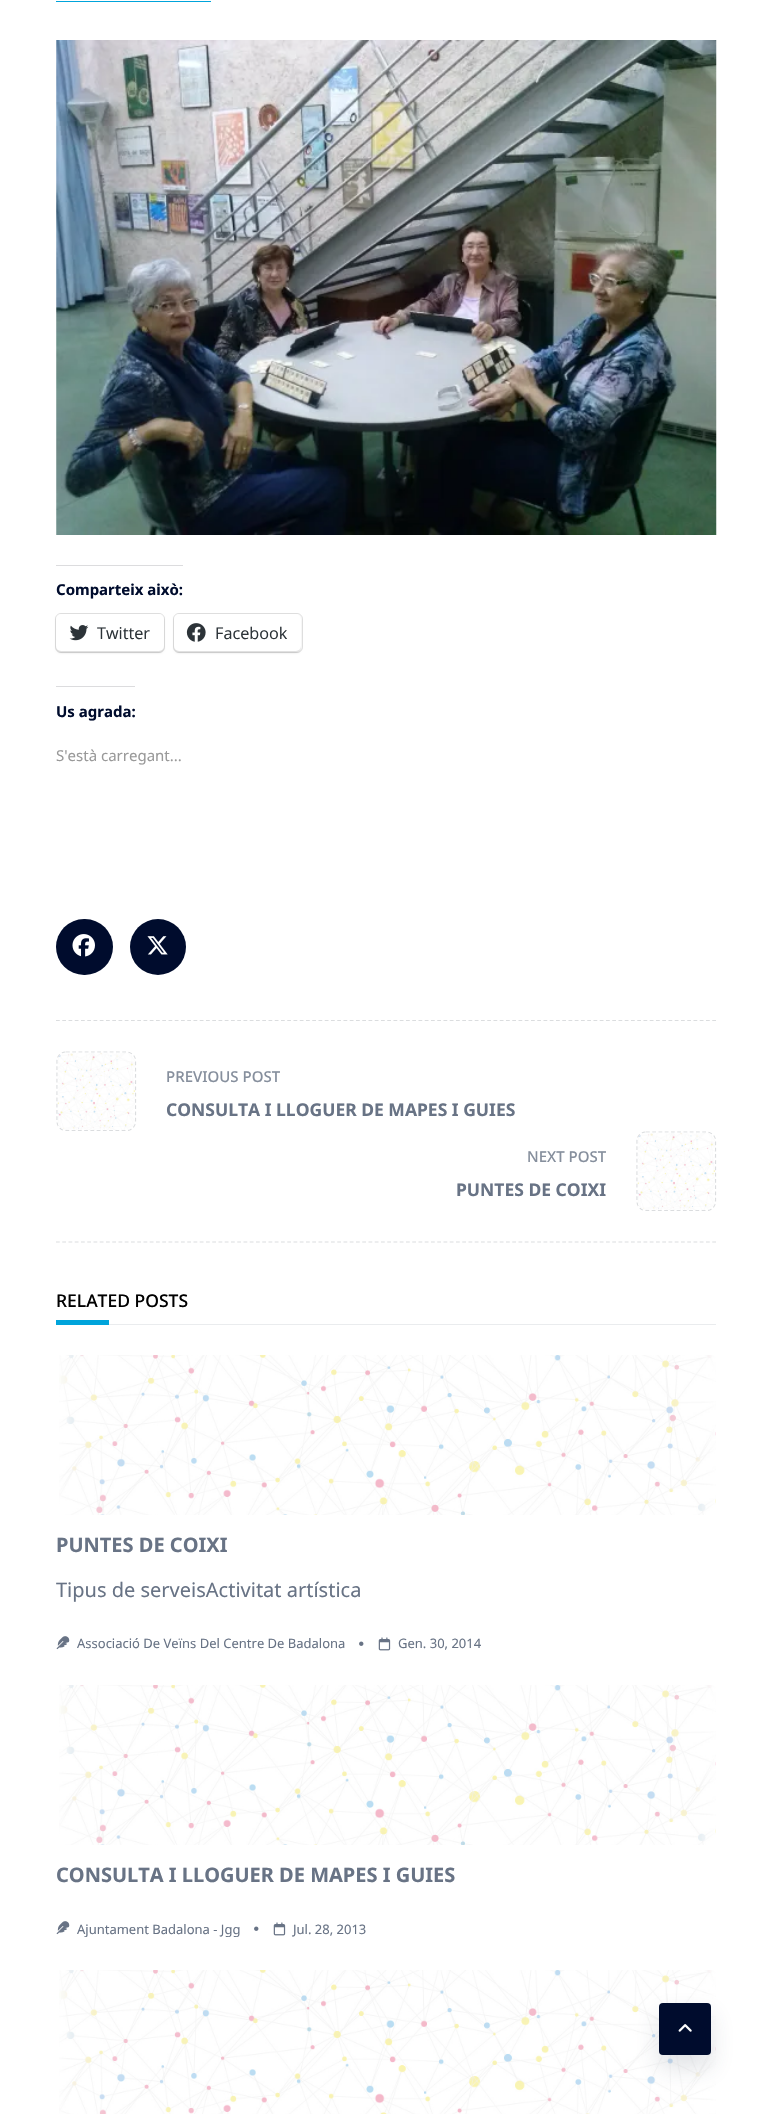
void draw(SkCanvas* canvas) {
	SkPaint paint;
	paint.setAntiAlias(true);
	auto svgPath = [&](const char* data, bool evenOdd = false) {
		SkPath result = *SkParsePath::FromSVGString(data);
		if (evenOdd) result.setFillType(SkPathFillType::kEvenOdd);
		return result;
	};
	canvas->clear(0xffffffff);
	paint.setColor(0xff00a4db);
	canvas->drawRect(SkRect::MakeXYWH(56, 1, 155, 1), paint);
	canvas->drawImageRect(SkImages::DeferredFromEncodedData(SkData::MakeFromFileName("img1.png")), SkRect::MakeXYWH(56, 40, 661, 495), SkSamplingOptions());
	paint.setColor(0xffdcdcde);
	canvas->drawRect(SkRect::MakeXYWH(56, 565, 127, 1), paint);
	SkFont f1(fontMgr->matchFamilyStyle("Noto Sans", SkFontStyle::Bold()), 15);
	f1.setSubpixel(true);
	paint.setColor(0xff000c2d);
	canvas->drawString("Comparteix això:", 56, 595, f1, paint);
	paint.setStroke(true);
	paint.setStrokeWidth(1);
	paint.setColor(0xffe0e0e0);
	canvas->drawRoundRect(SkRect::MakeXYWH(55.5, 613.5, 109, 39), 5.5, 5.5, paint);
	paint.setStroke(false);
	paint.setColor(0x1f000000);
	paint.setMaskFilter(SkMaskFilter::MakeBlur(kNormal_SkBlurStyle, 1));
	canvas->drawRoundRect(SkRect::MakeXYWH(56, 615, 108, 38), 5, 5, paint);
	paint.setMaskFilter(nullptr);
	paint.setColor(0xffffffff);
	canvas->drawRoundRect(SkRect::MakeXYWH(56, 614, 108, 37), 5, 5, paint);
	canvas->drawImageRect(SkImages::DeferredFromEncodedData(SkData::MakeFromFileName("img2.png")), SkRect::MakeXYWH(69, 625, 20, 16), SkSamplingOptions());
	SkFont f2(fontMgr->matchFamilyStyle("Open Sans", SkFontStyle::Normal()), 16.25);
	f2.setSubpixel(true);
	paint.setColor(0xff2c3338);
	canvas->drawString("Twitter", 97, 639, f2, paint);
	paint.setStroke(true);
	paint.setColor(0xffe0e0e0);
	canvas->drawRoundRect(SkRect::MakeXYWH(173.5, 613.5, 129, 39), 5.5, 5.5, paint);
	paint.setStroke(false);
	paint.setColor(0x1f000000);
	paint.setMaskFilter(SkMaskFilter::MakeBlur(kNormal_SkBlurStyle, 1));
	canvas->drawRoundRect(SkRect::MakeXYWH(174, 615, 127, 38), 5, 5, paint);
	paint.setMaskFilter(nullptr);
	paint.setColor(0xffffffff);
	canvas->drawRoundRect(SkRect::MakeXYWH(174, 614, 127, 37), 5, 5, paint);
	canvas->drawImageRect(SkImages::DeferredFromEncodedData(SkData::MakeFromFileName("img3.png")), SkRect::MakeXYWH(186, 623, 20, 19), SkSamplingOptions());
	paint.setColor(0xff2c3338);
	canvas->drawString("Facebook", 215, 639, f2, paint);
	paint.setColor(0xffdcdcde);
	canvas->drawRect(SkRect::MakeXYWH(56, 686, 79, 1), paint);
	paint.setColor(0xff000c2d);
	canvas->drawString("Us agrada:", 56, 717, f1, paint);
	SkFont f3(fontMgr->matchFamilyStyle("Noto Sans", SkFontStyle::Normal()), 15);
	f3.setSubpixel(true);
	paint.setColor(0xff999999);
	canvas->drawString("S'està carregant...", 56, 761, f3, paint);
	paint.setColor(0xff000c2d);
	canvas->drawRoundRect(SkRect::MakeXYWH(56, 919, 57, 56), 28, 28, paint);
	canvas->drawImageRect(SkImages::DeferredFromEncodedData(SkData::MakeFromFileName("img4.png")), SkRect::MakeXYWH(72, 934, 23, 23), SkSamplingOptions());
	canvas->drawCircle(158, 947, 28, paint);
	canvas->drawImageRect(SkImages::DeferredFromEncodedData(SkData::MakeFromFileName("img5.png")), SkRect::MakeXYWH(147, 936, 21, 19), SkSamplingOptions());
	paint.setStroke(true);
	paint.setStrokeWidth(1.2);
	paint.setColor(0xffdbdddf);
	paint.setPathEffect(SkDashPathEffect::Make({{3.75f, 2.5f}}, 0));
	canvas->drawPath(svgPath("M56 1020.5H716"), paint);
	paint.setPathEffect(nullptr);
	paint.setPathEffect(SkDashPathEffect::Make({{3.75f, 2.5f}}, 0));
	canvas->drawPath(svgPath("M56 1242H716"), paint);
	paint.setPathEffect(nullptr);
	paint.setPathEffect(SkDashPathEffect::Make({{3.75f, 2.5f}}, 0));
	canvas->drawPath(svgPath("M66 1052H126C131.5 1052 135.5 1056 135.5 1061V1121C135.5 1126.5 131.5 1130.5 126 1130.5H66C61 1130.5 57 1126.5 57 1121V1061C57 1056 61 1052 66 1052Z"), paint);
	paint.setPathEffect(nullptr);
	canvas->drawImageRect(SkImages::DeferredFromEncodedData(SkData::MakeFromFileName("img6.png")), SkRect::MakeXYWH(57, 1052, 78, 78), SkSamplingOptions());
	SkFont f4(fontMgr->matchFamilyStyle("Noto Sans", SkFontStyle(500, SkFontStyle::kNormal_Width, SkFontStyle::kUpright_Slant)), 15);
	f4.setSubpixel(true);
	paint.setStroke(false);
	paint.setColor(0xff868f9d);
	canvas->drawString("PREVIOUS POST", 166, 1082, f4, paint);
	SkFont f5(fontMgr->matchFamilyStyle("Noto Sans", SkFontStyle::Bold()), 17.5);
	f5.setSubpixel(true);
	paint.setColor(0xff687385);
	canvas->drawString("CONSULTA I LLOGUER DE MAPES I GUIES", 166, 1116, f5, paint);
	paint.setColor(0xff868f9d);
	canvas->drawString("NEXT POST", 527, 1162, f4, paint);
	paint.setColor(0xff687385);
	canvas->drawString("PUNTES DE COIXI", 456, 1196, f5, paint);
	paint.setStroke(true);
	paint.setColor(0xffdbdddf);
	paint.setPathEffect(SkDashPathEffect::Make({{3.75f, 2.5f}}, 0));
	canvas->drawPath(svgPath("M646 1132H706C711.5 1132 715.5 1136 715.5 1141V1201C715.5 1206.5 711.5 1210.5 706 1210.5H646C641 1210.5 637 1206.5 637 1201V1141C637 1136 641 1132 646 1132Z"), paint);
	paint.setPathEffect(nullptr);
	canvas->drawImageRect(SkImages::DeferredFromEncodedData(SkData::MakeFromFileName("img7.png")), SkRect::MakeXYWH(637, 1132, 78, 78), SkSamplingOptions());
	paint.setStroke(false);
	paint.setColor(0xffeaecee);
	canvas->drawRect(SkRect::MakeXYWH(109, 1324, 607, 1), paint);
	SkFont f6(fontMgr->matchFamilyStyle("Noto Sans", SkFontStyle(500, SkFontStyle::kNormal_Width, SkFontStyle::kUpright_Slant)), 17.5);
	f6.setSubpixel(true);
	paint.setColor(0xff000000);
	canvas->drawString("RELATED POSTS", 56, 1307, f6, paint);
	paint.setColor(0xff00a4db);
	canvas->drawRect(SkRect::MakeXYWH(56, 1320, 53, 5), paint);
	canvas->drawImageRect(SkImages::DeferredFromEncodedData(SkData::MakeFromFileName("img8.png")), SkRect::MakeXYWH(59, 1355, 657, 160), SkSamplingOptions());
	SkFont f7(fontMgr->matchFamilyStyle("Noto Sans", SkFontStyle::Bold()), 20);
	f7.setSubpixel(true);
	paint.setColor(0xff687385);
	canvas->drawString("PUNTES DE COIXI", 56, 1552, f7, paint);
	SkFont f8(fontMgr->matchFamilyStyle("Noto Sans", SkFontStyle::Normal()), 20);
	f8.setSubpixel(true);
	canvas->drawString("Tipus de serveisActivitat artística", 56, 1597, f8, paint);
	canvas->drawImageRect(SkImages::DeferredFromEncodedData(SkData::MakeFromFileName("img9.png")), SkRect::MakeXYWH(56, 1636, 14, 14), SkSamplingOptions());
	SkFont f9(fontMgr->matchFamilyStyle("Noto Sans", SkFontStyle::Normal()), 13);
	f9.setSubpixel(true);
	canvas->drawString("Associació De Veïns Del Centre De Badalona", 77, 1648, f9, paint);
	canvas->drawImageRect(SkImages::DeferredFromEncodedData(SkData::MakeFromFileName("img10.png")), SkRect::MakeXYWH(359, 1641, 5, 5), SkSamplingOptions());
	canvas->drawImageRect(SkImages::DeferredFromEncodedData(SkData::MakeFromFileName("img11.png")), SkRect::MakeXYWH(378, 1637, 13, 14), SkSamplingOptions());
	canvas->drawString("Gen. 30, 2014", 398, 1648, f9, paint);
	canvas->drawImageRect(SkImages::DeferredFromEncodedData(SkData::MakeFromFileName("img8.png")), SkRect::MakeXYWH(59, 1685, 657, 160), SkSamplingOptions());
	canvas->drawString("CONSULTA I LLOGUER DE MAPES I GUIES", 56, 1882, f7, paint);
	canvas->drawImageRect(SkImages::DeferredFromEncodedData(SkData::MakeFromFileName("img9.png")), SkRect::MakeXYWH(56, 1921, 14, 14), SkSamplingOptions());
	canvas->drawString("Ajuntament Badalona - Jgg", 77, 1934, f9, paint);
	canvas->drawImageRect(SkImages::DeferredFromEncodedData(SkData::MakeFromFileName("img10.png")), SkRect::MakeXYWH(254, 1926, 5, 5), SkSamplingOptions());
	canvas->drawImageRect(SkImages::DeferredFromEncodedData(SkData::MakeFromFileName("img11.png")), SkRect::MakeXYWH(273, 1922, 13, 14), SkSamplingOptions());
	canvas->drawString("Jul. 28, 2013", 293, 1934, f9, paint);
	canvas->drawImageRect(SkImages::DeferredFromEncodedData(SkData::MakeFromFileName("img12.png")), SkRect::MakeXYWH(59, 1970, 657, 144), SkSamplingOptions());
	paint.setColor(0x262c3e50);
	paint.setMaskFilter(SkMaskFilter::MakeBlur(kNormal_SkBlurStyle, 12.5));
	canvas->drawRoundRect(SkRect::MakeXYWH(659, 2015, 52, 53), 4, 4, paint);
	paint.setMaskFilter(nullptr);
	paint.setColor(0xff000c2d);
	canvas->drawRoundRect(SkRect::MakeXYWH(659, 2003, 52, 52), 4, 4, paint);
	canvas->drawImageRect(SkImages::DeferredFromEncodedData(SkData::MakeFromFileName("img13.png")), SkRect::MakeXYWH(678, 2024, 14, 8), SkSamplingOptions());
}
